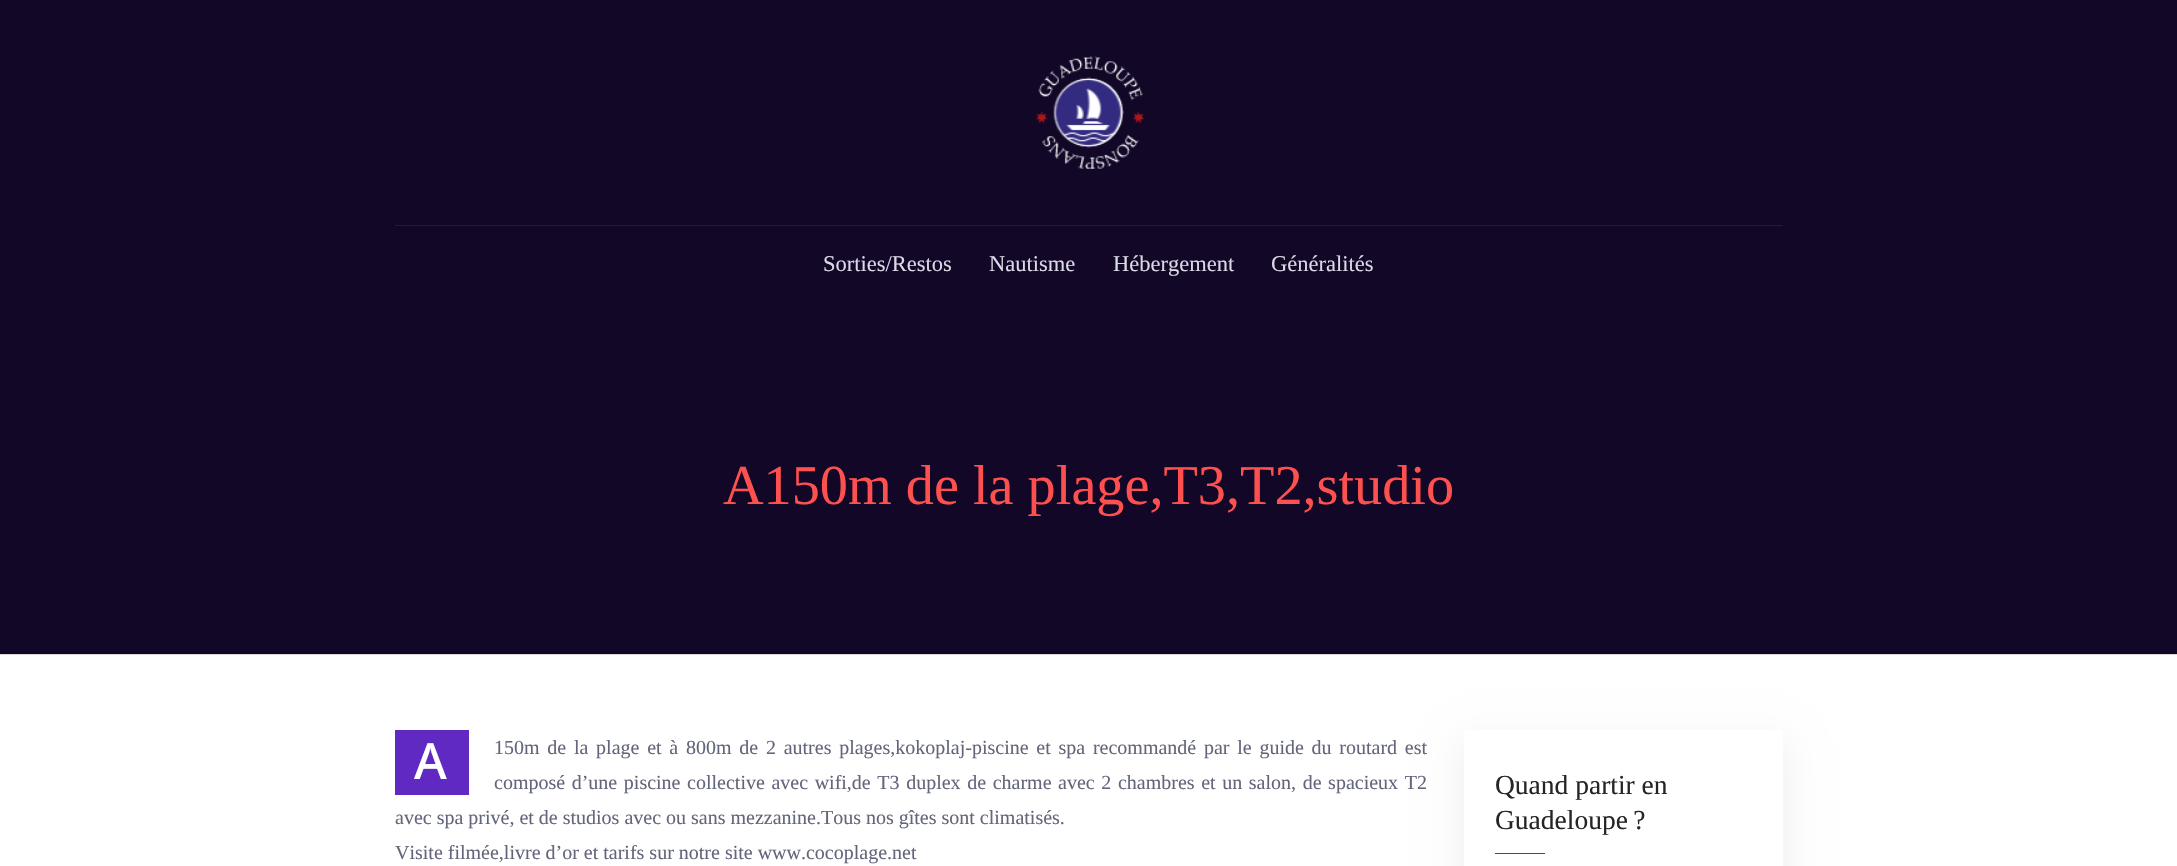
void draw(SkCanvas* canvas) {
	SkPaint paint;
	paint.setAntiAlias(true);
	auto spacedText = [&](const char* s, float x, float y, const SkFont& font, const SkPaint& ink, float letter, float word) {
		std::vector<SkGlyphID> glyphs(font.countText(s, strlen(s), SkTextEncoding::kUTF8));
		std::vector<float> xs(glyphs.size());
		font.textToGlyphs(s, strlen(s), SkTextEncoding::kUTF8, glyphs);
		font.getXPos(glyphs, xs, x);
		float extra = 0;
		for (size_t i = 0; i < glyphs.size(); i++) {
			xs[i] += extra;
			extra += letter + word * (glyphs[i] == font.unicharToGlyph(' '));
		}
		canvas->drawTextBlob(SkTextBlob::MakeFromPosHGlyphs(glyphs, xs, y, font), 0, 0, ink);
	};
	canvas->clear(0xffffffff);
	paint.setColor(0xff120727);
	canvas->drawRect(SkRect::MakeXYWH(0, 0, 2177, 654), paint);
	canvas->drawImageRect(SkImages::DeferredFromEncodedData(SkData::MakeFromFileName("img1.png")), SkRect::MakeXYWH(1035, 56, 110, 113), SkSamplingOptions());
	paint.setColor(0xff251b38);
	canvas->drawRect(SkRect::MakeXYWH(395, 225, 1388, 1), paint);
	SkFont f1(fontMgr->matchFamilyStyle("Liberation Serif", SkFontStyle::Normal()), 22.5);
	f1.setSubpixel(true);
	paint.setColor(0xffdbd9e7);
	canvas->drawString("Sorties/Restos", 823, 271, f1, paint);
	canvas->drawString("Nautisme", 989, 271, f1, paint);
	canvas->drawString("Hébergement", 1113, 271, f1, paint);
	canvas->drawString("Généralités", 1271, 271, f1, paint);
	paint.setColor(0xffd8d8d8);
	canvas->drawRect(SkRect::MakeXYWH(0, 654, 2177, 1), paint);
	SkFont f2(fontMgr->matchFamilyStyle("Liberation Serif", SkFontStyle::Normal()), 56.25);
	f2.setSubpixel(true);
	paint.setColor(0xffff5050);
	canvas->drawString("A150m de la plage,T3,T2,studio", 723, 504, f2, paint);
	paint.setColor(0xff5f29c2);
	canvas->drawRect(SkRect::MakeXYWH(395, 730, 74, 65), paint);
	SkFont f3(fontMgr->matchFamilyStyle("Noto Sans", SkFontStyle(500, SkFontStyle::kNormal_Width, SkFontStyle::kUpright_Slant)), 50);
	f3.setSubpixel(true);
	paint.setColor(0xffffffff);
	canvas->drawString("A", 414, 779, f3, paint);
	SkFont f4(fontMgr->matchFamilyStyle("Liberation Serif", SkFontStyle::Normal()), 20);
	f4.setSubpixel(true);
	paint.setColor(0xff63667a);
	spacedText("150m de la plage et à 800m de 2 autres plages,kokoplaj-piscine et spa recommandé par le guide du routard est", 494, 754, f4, paint, 0, 2.75);
	spacedText("composé d’une piscine collective avec wifi,de T3 duplex de charme avec 2 chambres et un salon, de spacieux T2", 494, 789, f4, paint, 0, 1.6);
	canvas->drawString("avec spa privé, et de studios avec ou sans mezzanine.Tous nos gîtes sont climatisés.", 395, 824, f4, paint);
	canvas->drawString("Visite filmée,livre d’or et tarifs sur notre site www.cocoplage.net", 395, 859, f4, paint);
	paint.setColor(0x12000000);
	paint.setMaskFilter(SkMaskFilter::MakeBlur(kNormal_SkBlurStyle, 19));
	canvas->drawRect(SkRect::MakeXYWH(1464, 743, 319, 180), paint);
	paint.setMaskFilter(nullptr);
	paint.setColor(0xffffffff);
	canvas->drawRect(SkRect::MakeXYWH(1464, 730, 319, 136), paint);
	SkFont f5(fontMgr->matchFamilyStyle("Liberation Serif", SkFontStyle::Normal()), 27.5);
	f5.setSubpixel(true);
	paint.setColor(0xff252525);
	canvas->drawString("Quand partir en", 1495, 794, f5, paint);
	canvas->drawString("Guadeloupe ?", 1495, 829, f5, paint);
	paint.setColor(0xff5f29c2);
	canvas->drawRect(SkRect::MakeXYWH(1495, 853, 50, 1), paint);
}
